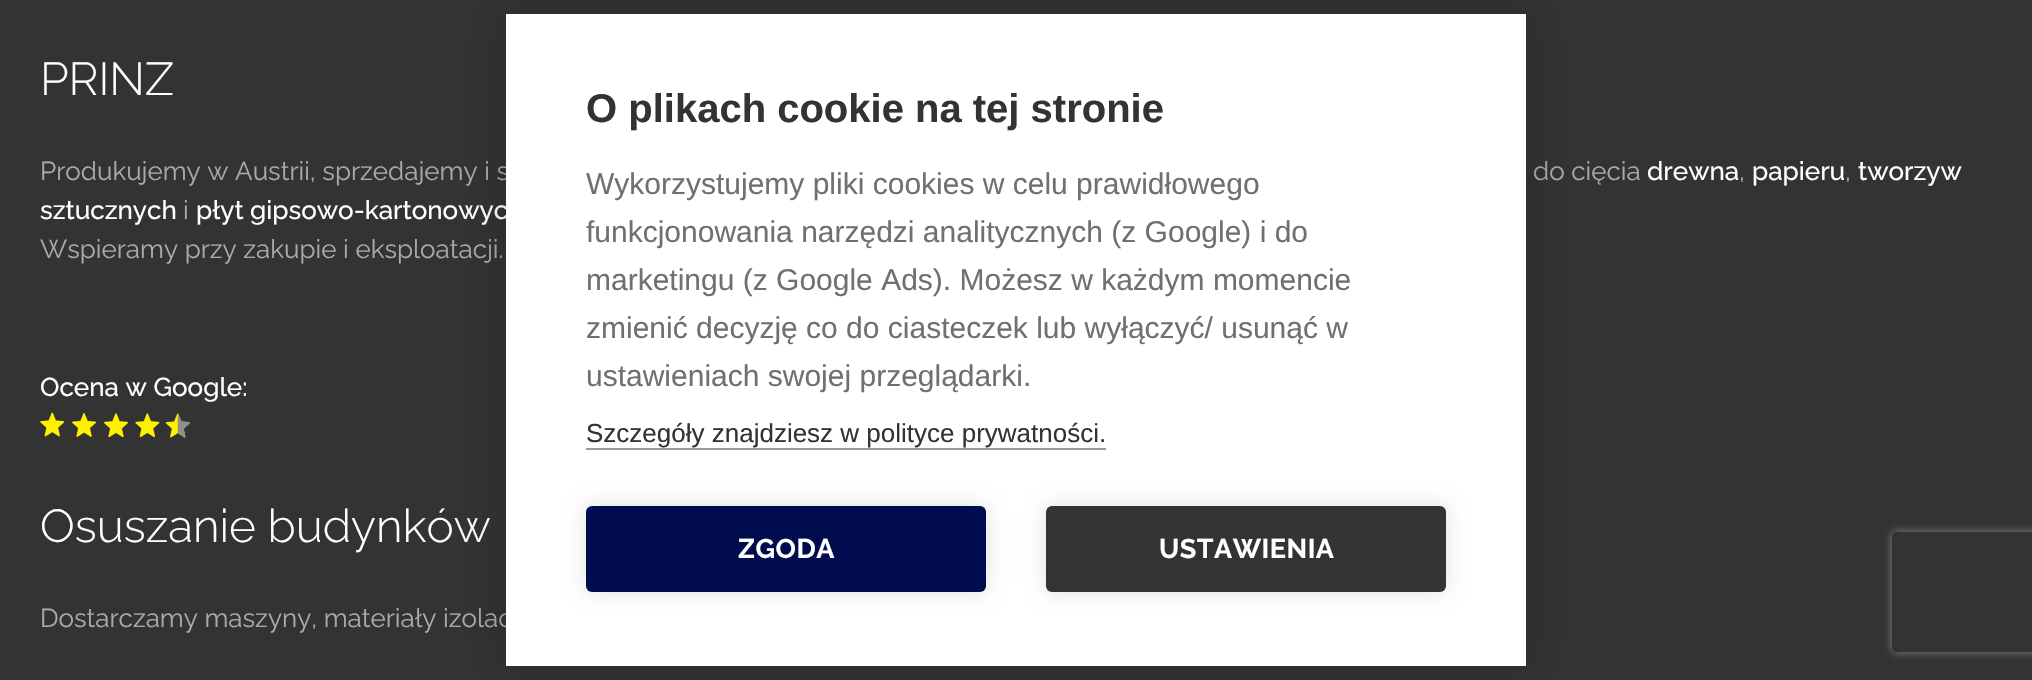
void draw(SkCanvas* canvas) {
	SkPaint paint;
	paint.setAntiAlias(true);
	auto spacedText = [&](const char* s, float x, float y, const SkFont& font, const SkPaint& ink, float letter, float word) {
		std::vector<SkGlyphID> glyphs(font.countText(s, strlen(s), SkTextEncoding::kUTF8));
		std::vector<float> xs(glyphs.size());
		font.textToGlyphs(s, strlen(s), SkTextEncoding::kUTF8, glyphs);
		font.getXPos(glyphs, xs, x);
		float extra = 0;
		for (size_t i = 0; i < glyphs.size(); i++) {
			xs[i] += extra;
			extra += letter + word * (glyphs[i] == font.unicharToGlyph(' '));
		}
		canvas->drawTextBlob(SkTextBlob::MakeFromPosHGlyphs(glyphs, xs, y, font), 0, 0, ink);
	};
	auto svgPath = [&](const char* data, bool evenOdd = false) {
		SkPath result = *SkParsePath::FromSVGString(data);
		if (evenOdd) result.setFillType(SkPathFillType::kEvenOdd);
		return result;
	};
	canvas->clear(0xff333333);
	SkFont f1(fontMgr->matchFamilyStyle("Raleway", SkFontStyle(300, SkFontStyle::kNormal_Width, SkFontStyle::kUpright_Slant)), 46);
	f1.setSubpixel(true);
	paint.setColor(0xffffffff);
	canvas->drawString("PRINZ", 40, 95, f1, paint);
	SkFont f2(fontMgr->matchFamilyStyle("Raleway", SkFontStyle::Normal()), 26);
	f2.setSubpixel(true);
	paint.setColor(0xffaaaaaa);
	canvas->drawString("Produkujemy w Austrii, sprzedajemy i s", 40, 180, f2, paint);
	canvas->drawString("do cięcia", 1533, 180, f2, paint);
	SkFont f3(fontMgr->matchFamilyStyle("Raleway", SkFontStyle(500, SkFontStyle::kNormal_Width, SkFontStyle::kUpright_Slant)), 26);
	f3.setSubpixel(true);
	paint.setColor(0xffffffff);
	canvas->drawString("drewna", 1647, 180, f3, paint);
	paint.setColor(0xffaaaaaa);
	canvas->drawString(",", 1739, 180, f2, paint);
	paint.setColor(0xffffffff);
	canvas->drawString("papieru", 1752, 180, f3, paint);
	paint.setColor(0xffaaaaaa);
	canvas->drawString(",", 1845, 180, f2, paint);
	paint.setColor(0xffffffff);
	canvas->drawString("tworzyw", 1858, 180, f3, paint);
	canvas->drawString("sztucznych", 40, 219, f3, paint);
	paint.setColor(0xffaaaaaa);
	canvas->drawString("i", 183, 219, f2, paint);
	paint.setColor(0xffffffff);
	canvas->drawString("płyt gipsowo-kartonowyc", 196, 219, f3, paint);
	paint.setColor(0xffaaaaaa);
	canvas->drawString("Wspieramy przy zakupie i eksploatacji.", 40, 258, f2, paint);
	paint.setColor(0xffffffff);
	canvas->drawString("Ocena w Google:", 40, 396, f3, paint);
	canvas->drawImageRect(SkImages::DeferredFromEncodedData(SkData::MakeFromFileName("img1.png")), SkRect::MakeXYWH(40, 412, 150, 26), SkSamplingOptions());
	canvas->drawString("Osuszanie budynków", 40, 542, f1, paint);
	paint.setColor(0xffaaaaaa);
	canvas->drawString("Dostarczamy maszyny, materiały izolac", 40, 627, f2, paint);
	paint.setColor(0x33000000);
	paint.setMaskFilter(SkMaskFilter::MakeBlur(kNormal_SkBlurStyle, 20));
	canvas->drawRect(SkRect::MakeXYWH(506, 14, 1020, 652), paint);
	paint.setMaskFilter(nullptr);
	paint.setColor(0xffffffff);
	canvas->drawRect(SkRect::MakeXYWH(506, 14, 1020, 652), paint);
	SkFont f4(fontMgr->matchFamilyStyle("Liberation Sans", SkFontStyle::Bold()), 40);
	f4.setSubpixel(true);
	paint.setColor(0xff333333);
	canvas->drawString("O plikach cookie na tej stronie", 586, 122, f4, paint);
	SkFont f5(fontMgr->matchFamilyStyle("Liberation Sans", SkFontStyle::Normal()), 30);
	f5.setSubpixel(true);
	paint.setColor(0xff707070);
	canvas->drawString("Wykorzystujemy pliki cookies w celu prawidłowego", 586, 194, f5, paint);
	canvas->drawString("funkcjonowania narzędzi analitycznych (z Google) i do", 586, 242, f5, paint);
	canvas->drawString("marketingu (z Google Ads). Możesz w każdym momencie", 586, 290, f5, paint);
	canvas->drawString("zmienić decyzję co do ciasteczek lub wyłączyć/ usunąć w", 586, 338, f5, paint);
	canvas->drawString("ustawieniach swojej przeglądarki.", 586, 386, f5, paint);
	SkFont f6(fontMgr->matchFamilyStyle("Liberation Sans", SkFontStyle::Normal()), 26);
	f6.setSubpixel(true);
	paint.setColor(0xff333333);
	canvas->drawString("Szczegóły znajdziesz w polityce prywatności.", 586, 442, f6, paint);
	paint.setColor(0xff999999);
	canvas->drawRect(SkRect::MakeXYWH(586, 448, 520, 2), paint);
	paint.setColor(0x1f000000);
	paint.setMaskFilter(SkMaskFilter::MakeBlur(kNormal_SkBlurStyle, 10));
	canvas->drawRoundRect(SkRect::MakeXYWH(586, 506, 400, 86), 6, 6, paint);
	paint.setMaskFilter(nullptr);
	paint.setColor(0xff000c4d);
	canvas->drawRoundRect(SkRect::MakeXYWH(586, 506, 400, 86), 6, 6, paint);
	SkFont f7(fontMgr->matchFamilyStyle("Raleway", SkFontStyle::Bold()), 27);
	f7.setSubpixel(true);
	paint.setColor(0xffffffff);
	spacedText("ZGODA", 738, 558, f7, paint, 0.5, 0);
	paint.setColor(0x1f000000);
	paint.setMaskFilter(SkMaskFilter::MakeBlur(kNormal_SkBlurStyle, 10));
	canvas->drawRoundRect(SkRect::MakeXYWH(1046, 506, 400, 86), 6, 6, paint);
	paint.setMaskFilter(nullptr);
	paint.setColor(0xff333333);
	canvas->drawRoundRect(SkRect::MakeXYWH(1046, 506, 400, 86), 6, 6, paint);
	paint.setColor(0xffffffff);
	spacedText("USTAWIENIA", 1159, 558, f7, paint, 0.5, 0);
	canvas->save();
	canvas->clipPath(svgPath("M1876 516H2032V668H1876ZM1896 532H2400C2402 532 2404 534 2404 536V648C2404 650 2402 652 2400 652H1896C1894 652 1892 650 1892 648V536C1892 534 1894 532 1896 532Z", true), true);
	paint.setColor(0xff808080);
	paint.setMaskFilter(SkMaskFilter::MakeBlur(kNormal_SkBlurStyle, 5));
	canvas->drawRoundRect(SkRect::MakeXYWH(1892, 532, 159, 120), 4, 4, paint);
	paint.setMaskFilter(nullptr);
	canvas->restore();
}
